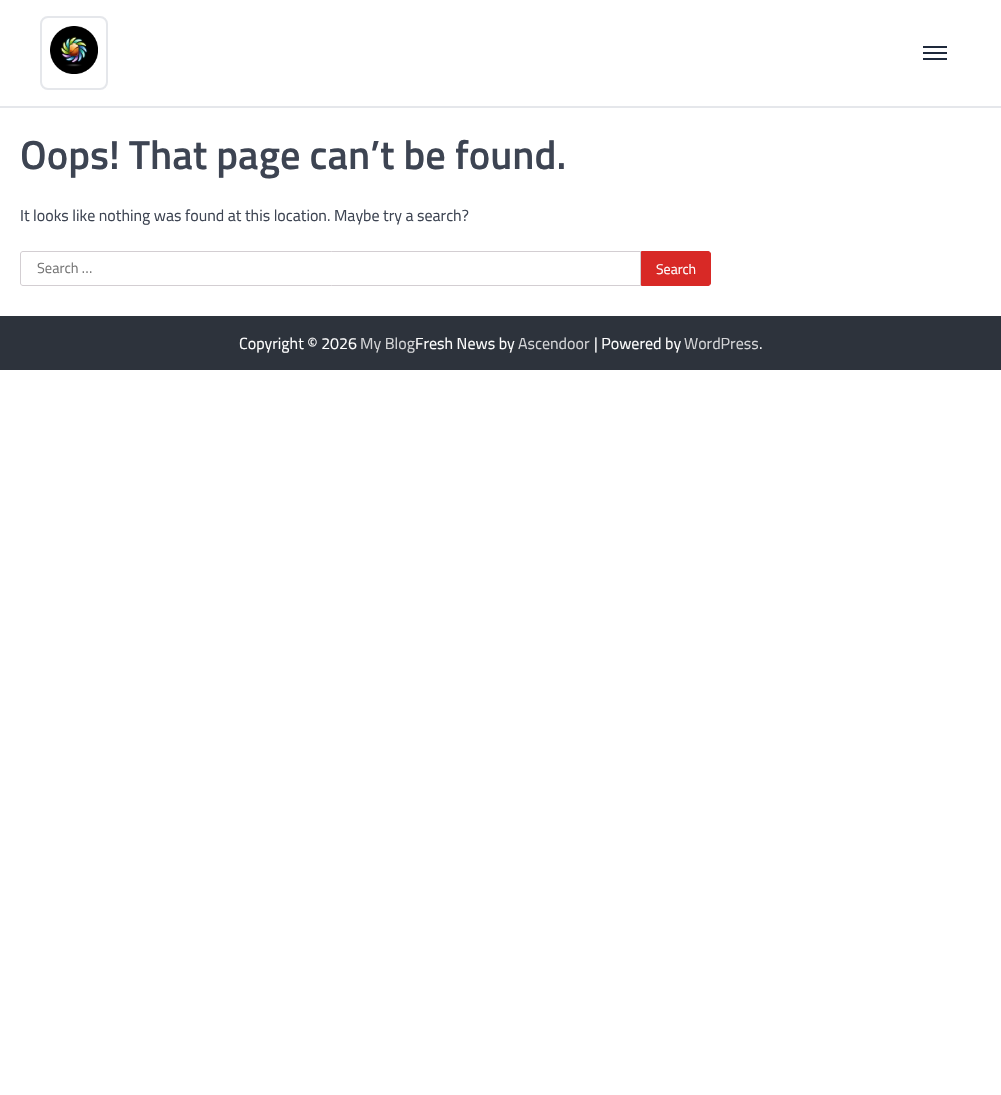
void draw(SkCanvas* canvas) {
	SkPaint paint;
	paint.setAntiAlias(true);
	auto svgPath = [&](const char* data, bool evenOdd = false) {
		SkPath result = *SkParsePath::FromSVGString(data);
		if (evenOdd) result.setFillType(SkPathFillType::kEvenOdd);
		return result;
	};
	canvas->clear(0xffffffff);
	paint.setColor(0xffe5e7eb);
	canvas->drawRect(SkRect::MakeXYWH(0, 106, 1001, 2), paint);
	paint.setStroke(true);
	paint.setStrokeWidth(2);
	canvas->drawRoundRect(SkRect::MakeXYWH(41, 17, 66, 72), 7, 7, paint);
	canvas->drawImageRect(SkImages::DeferredFromEncodedData(SkData::MakeFromFileName("img1.png")), SkRect::MakeXYWH(50, 26, 48, 48), SkSamplingOptions());
	paint.setStroke(false);
	paint.setColor(0xff1e293b);
	canvas->drawRect(SkRect::MakeXYWH(923, 46, 24, 2), paint);
	canvas->drawRect(SkRect::MakeXYWH(923, 52, 24, 2), paint);
	canvas->drawRect(SkRect::MakeXYWH(923, 58, 24, 2), paint);
	SkFont f1(fontMgr->matchFamilyStyle("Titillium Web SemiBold", SkFontStyle(600, SkFontStyle::kNormal_Width, SkFontStyle::kUpright_Slant)), 40.6);
	f1.setSubpixel(true);
	paint.setColor(0xff3d4452);
	canvas->drawString("Oops! That page can’t be found.", 20, 169, f1, paint);
	SkFont f2(fontMgr->matchFamilyStyle("Titillium Web", SkFontStyle::Normal()), 16);
	f2.setSubpixel(true);
	canvas->drawString("It looks like nothing was found at this location. Maybe try a search?", 20, 221, f2, paint);
	paint.setStroke(true);
	paint.setStrokeWidth(1);
	paint.setColor(0xffd3ced2);
	canvas->drawPath(svgPath("M23 251.5H640.5V285.5H23C21.5 285.5 20.5 284.5 20.5 283V254C20.5 252.5 21.5 251.5 23 251.5Z"), paint);
	SkFont f3(fontMgr->matchFamilyStyle("Titillium Web", SkFontStyle::Normal()), 14.5);
	f3.setSubpixel(true);
	paint.setStroke(false);
	paint.setColor(0xff757575);
	canvas->drawString("Search …", 37, 273, f3, paint);
	paint.setColor(0xffd82926);
	canvas->drawPath(svgPath("M641.5 251.5H708C709.5 251.5 710.5 252.5 710.5 254V283C710.5 284.5 709.5 285.5 708 285.5H641.5Z"), paint);
	paint.setStroke(true);
	canvas->drawPath(svgPath("M641.5 251.5H708C709.5 251.5 710.5 252.5 710.5 254V283C710.5 284.5 709.5 285.5 708 285.5H641.5Z"), paint);
	SkFont f4(fontMgr->matchFamilyStyle("Titillium Web", SkFontStyle::Normal()), 14);
	f4.setSubpixel(true);
	paint.setStroke(false);
	paint.setColor(0xffffffff);
	canvas->drawString("Search", 656, 274, f4, paint);
	paint.setColor(0xff2d333c);
	canvas->drawRect(SkRect::MakeXYWH(0, 316, 1001, 54), paint);
	paint.setColor(0xffffffff);
	canvas->drawString("Copyright © 2026", 239, 349, f2, paint);
	paint.setColor(0xffd5d6d8);
	canvas->drawString("My Blog", 360, 349, f2, paint);
	paint.setColor(0xffffffff);
	canvas->drawString("Fresh News by", 415, 349, f2, paint);
	paint.setColor(0xffd5d6d8);
	canvas->drawString("Ascendoor", 518, 349, f2, paint);
	paint.setColor(0xffffffff);
	canvas->drawString("| Powered by", 594, 349, f2, paint);
	paint.setColor(0xffd5d6d8);
	canvas->drawString("WordPress", 684, 349, f2, paint);
	paint.setColor(0xffffffff);
	canvas->drawString(".", 759, 349, f2, paint);
}
